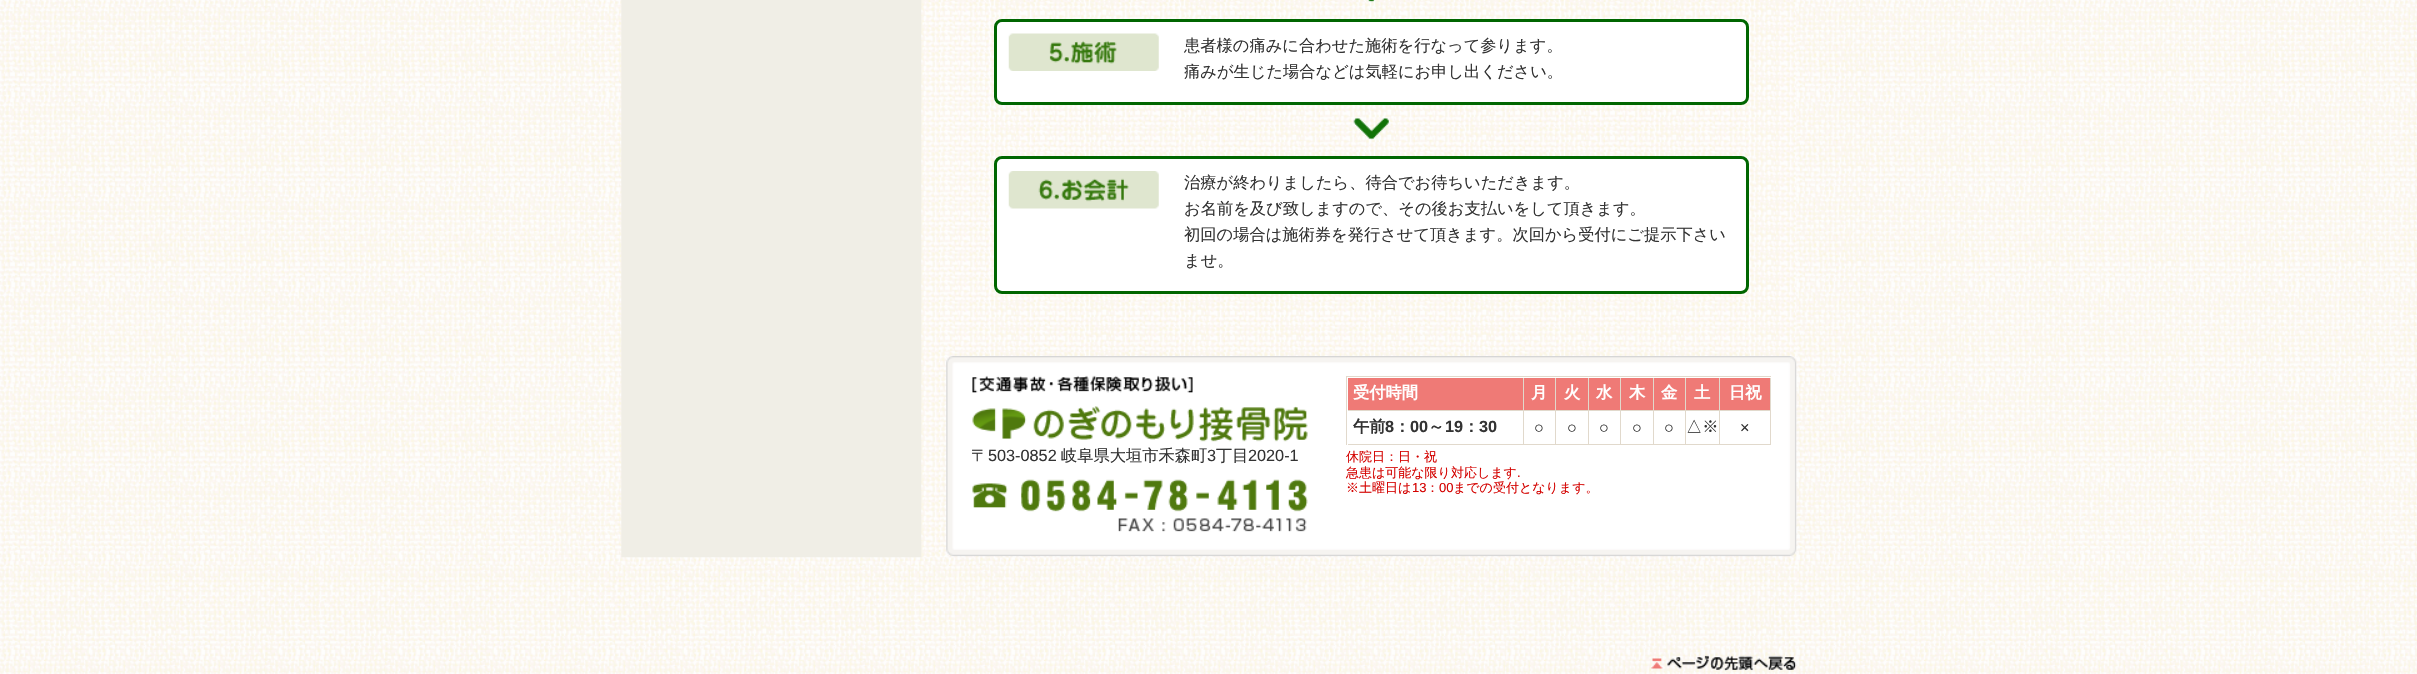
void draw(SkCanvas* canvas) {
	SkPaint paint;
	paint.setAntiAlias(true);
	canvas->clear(0xffffffff);
	canvas->drawImageRect(SkImages::DeferredFromEncodedData(SkData::MakeFromFileName("img1.png")), SkRect::MakeXYWH(0, 0, 2417, 674), SkSamplingOptions());
	canvas->drawImageRect(SkImages::DeferredFromEncodedData(SkData::MakeFromFileName("img2.png")), SkRect::MakeXYWH(621, 0, 1176, 558), SkSamplingOptions());
	canvas->drawImageRect(SkImages::DeferredFromEncodedData(SkData::MakeFromFileName("img3.png")), SkRect::MakeXYWH(1367, 0, 8, 3), SkSamplingOptions());
	paint.setColor(0xffffffff);
	canvas->drawRoundRect(SkRect::MakeXYWH(995.5, 20.5, 752, 83), 6.5, 6.5, paint);
	paint.setStroke(true);
	paint.setStrokeWidth(3);
	paint.setColor(0xff006600);
	canvas->drawRoundRect(SkRect::MakeXYWH(995.5, 20.5, 752, 83), 6.5, 6.5, paint);
	canvas->drawImageRect(SkImages::DeferredFromEncodedData(SkData::MakeFromFileName("img4.png")), SkRect::MakeXYWH(1008, 33, 151, 38), SkSamplingOptions());
	SkFont f1(fontMgr->matchFamilyStyle("WenQuanYi Zen Hei", SkFontStyle(500, SkFontStyle::kNormal_Width, SkFontStyle::kUpright_Slant)), 16.25);
	f1.setSubpixel(true);
	paint.setStroke(false);
	paint.setColor(0xff333333);
	canvas->drawString("患者様の痛みに合わせた施術を行なって参ります。", 1184, 51, f1, paint);
	canvas->drawString("痛みが生じた場合などは気軽にお申し出ください。", 1184, 77, f1, paint);
	canvas->drawImageRect(SkImages::DeferredFromEncodedData(SkData::MakeFromFileName("img5.png")), SkRect::MakeXYWH(1353, 117, 37, 23), SkSamplingOptions());
	paint.setColor(0xffffffff);
	canvas->drawRoundRect(SkRect::MakeXYWH(995.5, 157.5, 752, 135), 6.5, 6.5, paint);
	paint.setStroke(true);
	paint.setColor(0xff006600);
	canvas->drawRoundRect(SkRect::MakeXYWH(995.5, 157.5, 752, 135), 6.5, 6.5, paint);
	canvas->drawImageRect(SkImages::DeferredFromEncodedData(SkData::MakeFromFileName("img6.png")), SkRect::MakeXYWH(1008, 171, 151, 38), SkSamplingOptions());
	paint.setStroke(false);
	paint.setColor(0xff333333);
	canvas->drawString("治療が終わりましたら、待合でお待ちいただきます。", 1184, 188, f1, paint);
	canvas->drawString("お名前を及び致しますので、その後お支払いをして頂きます。", 1184, 214, f1, paint);
	canvas->drawString("初回の場合は施術券を発行させて頂きます。次回から受付にご提示下さい", 1184, 240, f1, paint);
	canvas->drawString("ませ。", 1184, 266, f1, paint);
	canvas->drawImageRect(SkImages::DeferredFromEncodedData(SkData::MakeFromFileName("img7.png")), SkRect::MakeXYWH(946, 356, 851, 202), SkSamplingOptions());
	canvas->drawImageRect(SkImages::DeferredFromEncodedData(SkData::MakeFromFileName("img8.png")), SkRect::MakeXYWH(972, 406, 336, 36), SkSamplingOptions());
	paint.setColor(0xffe1d9cc);
	canvas->drawRect(SkRect::MakeXYWH(1346, 376, 425, 1), paint);
	canvas->drawRect(SkRect::MakeXYWH(1346, 376, 1, 69), paint);
	paint.setColor(0xffef7a76);
	canvas->drawRect(SkRect::MakeXYWH(1348, 378, 175, 32), paint);
	paint.setColor(0xffe1d9cc);
	canvas->drawRect(SkRect::MakeXYWH(1523, 378, 1, 67), paint);
	canvas->drawRect(SkRect::MakeXYWH(1348, 410, 176, 1), paint);
	SkFont f2(fontMgr->matchFamilyStyle("WenQuanYi Zen Hei", SkFontStyle::Bold()), 16.25);
	f2.setSubpixel(true);
	paint.setColor(0xffffffff);
	canvas->drawString("受付時間", 1353, 398, f2, paint);
	paint.setColor(0xffef7a76);
	canvas->drawRect(SkRect::MakeXYWH(1524, 378, 31, 32), paint);
	paint.setColor(0xffe1d9cc);
	canvas->drawRect(SkRect::MakeXYWH(1555, 378, 1, 67), paint);
	canvas->drawRect(SkRect::MakeXYWH(1524, 410, 32, 1), paint);
	paint.setColor(0xffffffff);
	canvas->drawString("月", 1531, 398, f2, paint);
	paint.setColor(0xffef7a76);
	canvas->drawRect(SkRect::MakeXYWH(1556, 378, 32, 32), paint);
	paint.setColor(0xffe1d9cc);
	canvas->drawRect(SkRect::MakeXYWH(1588, 378, 1, 67), paint);
	canvas->drawRect(SkRect::MakeXYWH(1556, 410, 33, 1), paint);
	paint.setColor(0xffffffff);
	canvas->drawString("火", 1564, 398, f2, paint);
	paint.setColor(0xffef7a76);
	canvas->drawRect(SkRect::MakeXYWH(1589, 378, 31, 32), paint);
	paint.setColor(0xffe1d9cc);
	canvas->drawRect(SkRect::MakeXYWH(1620, 378, 1, 67), paint);
	canvas->drawRect(SkRect::MakeXYWH(1589, 410, 32, 1), paint);
	paint.setColor(0xffffffff);
	canvas->drawString("水", 1596, 398, f2, paint);
	paint.setColor(0xffef7a76);
	canvas->drawRect(SkRect::MakeXYWH(1621, 378, 32, 32), paint);
	paint.setColor(0xffe1d9cc);
	canvas->drawRect(SkRect::MakeXYWH(1653, 378, 1, 67), paint);
	canvas->drawRect(SkRect::MakeXYWH(1621, 410, 33, 1), paint);
	paint.setColor(0xffffffff);
	canvas->drawString("木", 1629, 398, f2, paint);
	paint.setColor(0xffef7a76);
	canvas->drawRect(SkRect::MakeXYWH(1654, 378, 31, 32), paint);
	paint.setColor(0xffe1d9cc);
	canvas->drawRect(SkRect::MakeXYWH(1685, 378, 1, 67), paint);
	canvas->drawRect(SkRect::MakeXYWH(1654, 410, 32, 1), paint);
	paint.setColor(0xffffffff);
	canvas->drawString("金", 1661, 398, f2, paint);
	paint.setColor(0xffef7a76);
	canvas->drawRect(SkRect::MakeXYWH(1686, 378, 33, 32), paint);
	paint.setColor(0xffe1d9cc);
	canvas->drawRect(SkRect::MakeXYWH(1719, 378, 1, 67), paint);
	canvas->drawRect(SkRect::MakeXYWH(1686, 410, 34, 1), paint);
	paint.setColor(0xffffffff);
	canvas->drawString("土", 1694, 398, f2, paint);
	paint.setColor(0xffef7a76);
	canvas->drawRect(SkRect::MakeXYWH(1720, 378, 50, 32), paint);
	paint.setColor(0xffe1d9cc);
	canvas->drawRect(SkRect::MakeXYWH(1770, 378, 1, 67), paint);
	canvas->drawRect(SkRect::MakeXYWH(1720, 410, 51, 1), paint);
	paint.setColor(0xffffffff);
	canvas->drawString("日祝", 1729, 398, f2, paint);
	paint.setColor(0xffe1d9cc);
	canvas->drawRect(SkRect::MakeXYWH(1348, 444, 423, 1), paint);
	paint.setColor(0xff333333);
	canvas->drawString("午前", 1353, 432, f2, paint);
	SkFont f3(fontMgr->matchFamilyStyle("Liberation Sans", SkFontStyle::Bold()), 16.25);
	f3.setSubpixel(true);
	canvas->drawString("8", 1385, 432, f3, paint);
	canvas->drawString("：", 1394, 432, f2, paint);
	canvas->drawString("00", 1410, 432, f3, paint);
	canvas->drawString("～", 1428, 432, f2, paint);
	canvas->drawString("19", 1445, 432, f3, paint);
	canvas->drawString("：", 1463, 432, f2, paint);
	canvas->drawString("30", 1479, 432, f3, paint);
	SkFont f4(fontMgr->matchFamilyStyle("Liberation Sans", SkFontStyle::Normal()), 16.25);
	f4.setSubpixel(true);
	canvas->drawString("○", 1534, 433, f4, paint);
	canvas->drawString("○", 1567, 433, f4, paint);
	canvas->drawString("○", 1599, 433, f4, paint);
	canvas->drawString("○", 1632, 433, f4, paint);
	canvas->drawString("○", 1664, 433, f4, paint);
	canvas->drawString("△※", 1686, 432, f1, paint);
	canvas->drawString("×", 1740, 433, f4, paint);
	SkFont f5(fontMgr->matchFamilyStyle("WenQuanYi Zen Hei", SkFontStyle(500, SkFontStyle::kNormal_Width, SkFontStyle::kUpright_Slant)), 13);
	f5.setSubpixel(true);
	paint.setColor(0xffd40200);
	canvas->drawString("休院日：日・祝", 1346, 461, f5, paint);
	canvas->drawString("急患は可能な限り対応します", 1346, 477, f5, paint);
	SkFont f6(fontMgr->matchFamilyStyle("Liberation Sans", SkFontStyle::Normal()), 13);
	f6.setSubpixel(true);
	canvas->drawString(".", 1517, 477, f6, paint);
	canvas->drawString("※土曜日は", 1346, 492, f5, paint);
	canvas->drawString("13", 1412, 492, f6, paint);
	canvas->drawString("：", 1426, 492, f5, paint);
	canvas->drawString("00", 1439, 492, f6, paint);
	canvas->drawString("までの受付となります。", 1453, 492, f5, paint);
	paint.setColor(0xff333333);
	canvas->drawString("〒", 971, 461, f1, paint);
	canvas->drawString("503-0852", 988, 461, f4, paint);
	canvas->drawString("岐阜県大垣市禾森町", 1061, 461, f1, paint);
	canvas->drawString("3", 1207, 461, f4, paint);
	canvas->drawString("丁目", 1216, 461, f1, paint);
	canvas->drawString("2020-1", 1248, 461, f4, paint);
	canvas->drawImageRect(SkImages::DeferredFromEncodedData(SkData::MakeFromFileName("img9.png")), SkRect::MakeXYWH(1651, 655, 146, 16), SkSamplingOptions());
}
